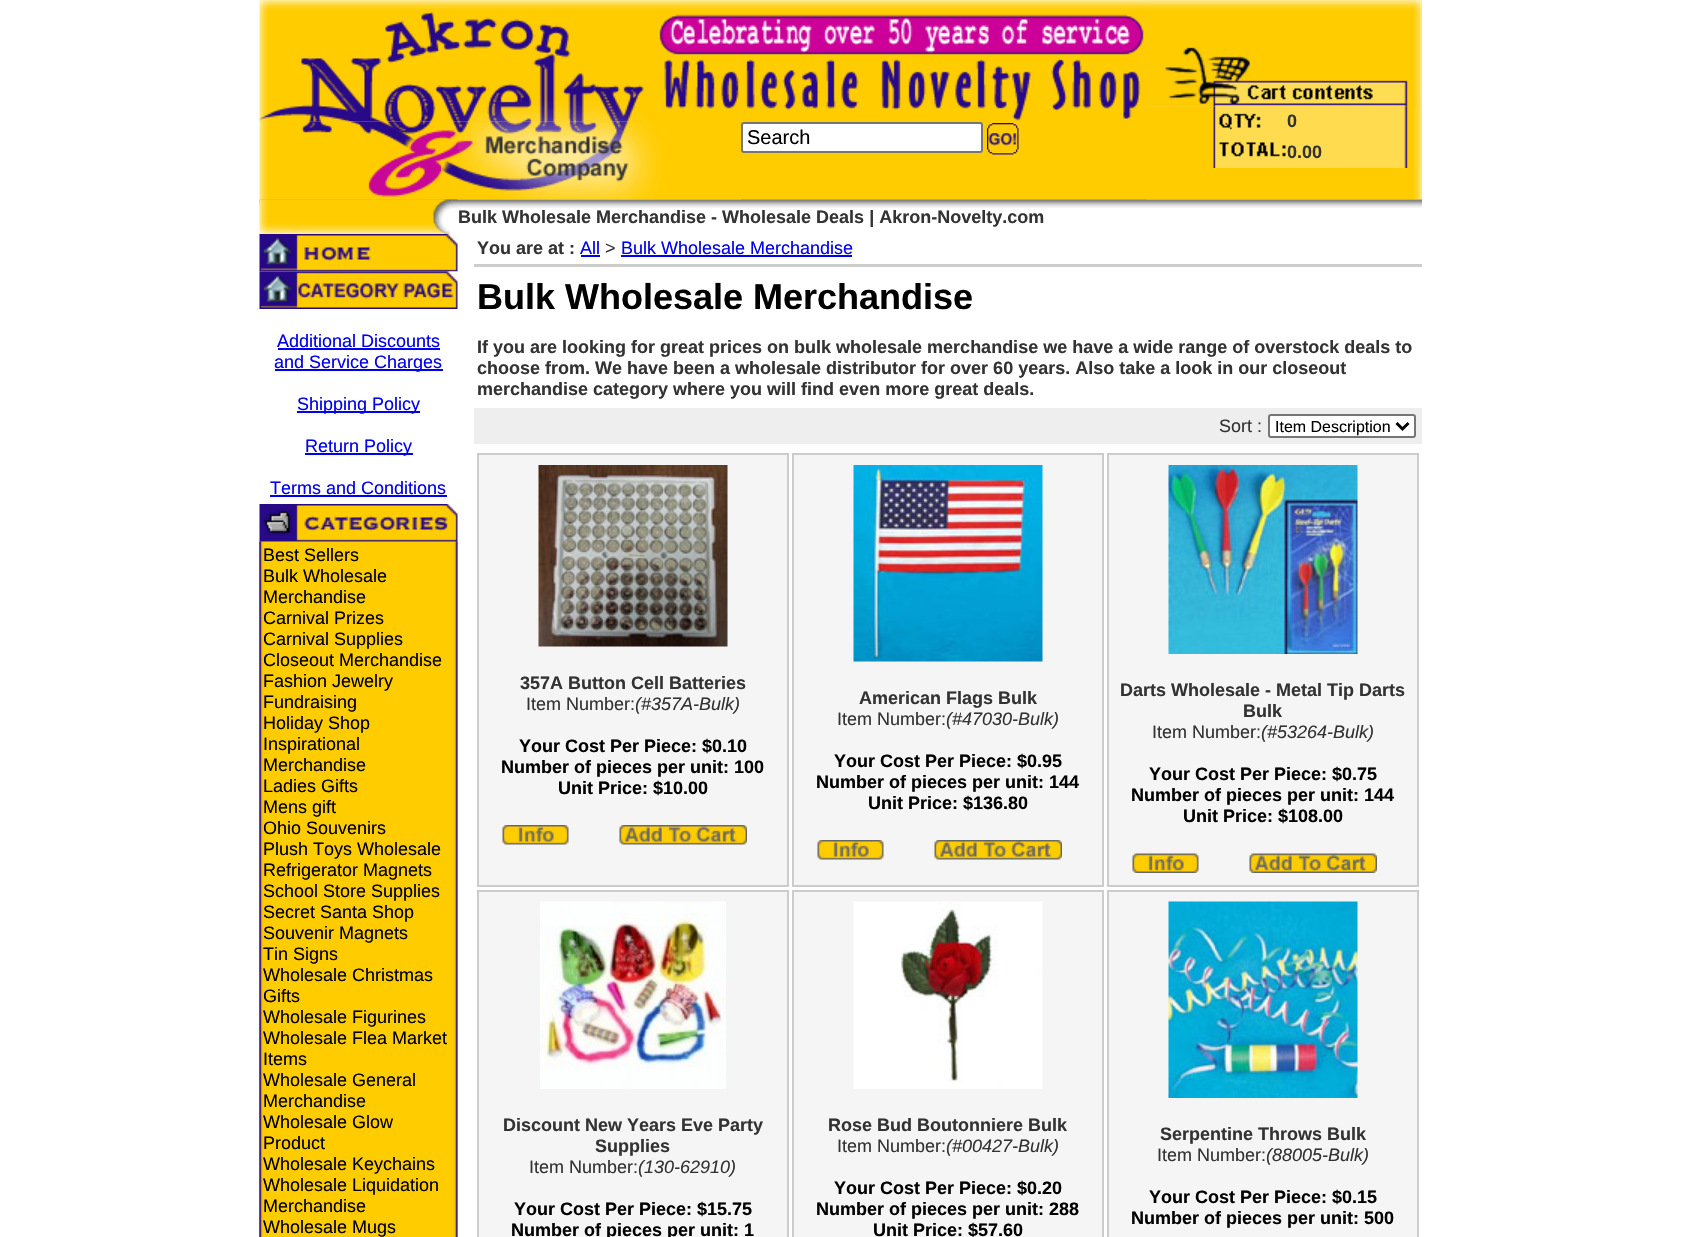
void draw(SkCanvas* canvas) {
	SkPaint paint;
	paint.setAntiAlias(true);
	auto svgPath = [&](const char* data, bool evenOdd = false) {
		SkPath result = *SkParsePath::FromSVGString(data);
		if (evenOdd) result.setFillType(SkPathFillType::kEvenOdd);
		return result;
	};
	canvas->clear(0xffffffff);
	paint.setColor(0xffffcc00);
	canvas->drawRect(SkRect::MakeXYWH(260, 121, 886, 79), paint);
	canvas->drawImageRect(SkImages::DeferredFromEncodedData(SkData::MakeFromFileName("img1.png")), SkRect::MakeXYWH(259, 0, 887, 122), SkSamplingOptions());
	canvas->drawImageRect(SkImages::DeferredFromEncodedData(SkData::MakeFromFileName("img4.png")), SkRect::MakeXYWH(1146, 106, 276, 94), SkSamplingOptions());
	canvas->drawImageRect(SkImages::DeferredFromEncodedData(SkData::MakeFromFileName("img9.png")), SkRect::MakeXYWH(259, 199, 1163, 9), SkSamplingOptions());
	canvas->drawImageRect(SkImages::DeferredFromEncodedData(SkData::MakeFromFileName("img2.png")), SkRect::MakeXYWH(259, 121, 482, 79), SkSamplingOptions());
	paint.setColor(0xffffffff);
	canvas->drawRoundRect(SkRect::MakeXYWH(742, 123, 240, 29), 2, 2, paint);
	paint.setStroke(true);
	paint.setStrokeWidth(2);
	paint.setColor(0xff767676);
	canvas->drawRoundRect(SkRect::MakeXYWH(742, 123, 240, 29), 2, 2, paint);
	SkFont f1(fontMgr->matchFamilyStyle("Liberation Sans", SkFontStyle::Normal()), 20);
	f1.setSubpixel(true);
	paint.setStroke(false);
	paint.setColor(0xff000000);
	canvas->drawString("Search", 747, 144, f1, paint);
	canvas->drawImageRect(SkImages::DeferredFromEncodedData(SkData::MakeFromFileName("img3.png")), SkRect::MakeXYWH(987, 123, 32, 32), SkSamplingOptions());
	paint.setColor(0xffffdc4f);
	canvas->drawRect(SkRect::MakeXYWH(1146, 106, 258, 29), paint);
	canvas->drawImageRect(SkImages::DeferredFromEncodedData(SkData::MakeFromFileName("img5.png")), SkRect::MakeXYWH(1146, 0, 276, 107), SkSamplingOptions());
	canvas->drawImageRect(SkImages::DeferredFromEncodedData(SkData::MakeFromFileName("img6.png")), SkRect::MakeXYWH(1146, 106, 115, 29), SkSamplingOptions());
	canvas->drawImageRect(SkImages::DeferredFromEncodedData(SkData::MakeFromFileName("img7.png")), SkRect::MakeXYWH(1404, 106, 4, 62), SkSamplingOptions());
	SkFont f2(fontMgr->matchFamilyStyle("Liberation Sans", SkFontStyle::Bold()), 18);
	f2.setSubpixel(true);
	paint.setColor(0xff333333);
	canvas->drawString("0", 1287, 127, f2, paint);
	paint.setColor(0xffffdc4f);
	canvas->drawRect(SkRect::MakeXYWH(1286, 135, 118, 33), paint);
	canvas->drawImageRect(SkImages::DeferredFromEncodedData(SkData::MakeFromFileName("img8.png")), SkRect::MakeXYWH(1146, 135, 140, 33), SkSamplingOptions());
	paint.setColor(0xff333333);
	canvas->drawString("0.00", 1287, 158, f2, paint);
	canvas->drawImageRect(SkImages::DeferredFromEncodedData(SkData::MakeFromFileName("img10.png")), SkRect::MakeXYWH(259, 199, 199, 35), SkSamplingOptions());
	canvas->drawString("Bulk Wholesale Merchandise - Wholesale Deals | Akron-Novelty.com", 458, 223, f2, paint);
	canvas->drawImageRect(SkImages::DeferredFromEncodedData(SkData::MakeFromFileName("img11.png")), SkRect::MakeXYWH(259, 234, 199, 38), SkSamplingOptions());
	canvas->drawImageRect(SkImages::DeferredFromEncodedData(SkData::MakeFromFileName("img12.png")), SkRect::MakeXYWH(259, 271, 199, 38), SkSamplingOptions());
	SkFont f3(fontMgr->matchFamilyStyle("Liberation Sans", SkFontStyle::Normal()), 18);
	f3.setSubpixel(true);
	paint.setColor(0xff0000ee);
	canvas->drawString("Additional Discounts", 277, 347, f3, paint);
	canvas->drawRect(SkRect::MakeXYWH(278, 348, 162, 2), paint);
	canvas->drawRect(SkRect::MakeXYWH(275, 369, 168, 2), paint);
	canvas->drawString("and Service Charges", 274, 368, f3, paint);
	canvas->drawRect(SkRect::MakeXYWH(297, 411, 123, 2), paint);
	canvas->drawString("Shipping Policy", 297, 410, f3, paint);
	canvas->drawRect(SkRect::MakeXYWH(305, 453, 108, 2), paint);
	canvas->drawString("Return Policy", 305, 452, f3, paint);
	canvas->drawString("Terms and Conditions", 270, 494, f3, paint);
	canvas->drawRect(SkRect::MakeXYWH(270, 495, 177, 2), paint);
	canvas->drawImageRect(SkImages::DeferredFromEncodedData(SkData::MakeFromFileName("img14.png")), SkRect::MakeXYWH(259, 541, 199, 696), SkSamplingOptions());
	paint.setColor(0xffffcc00);
	canvas->drawRect(SkRect::MakeXYWH(457, 542, 1, 695), paint);
	canvas->drawImageRect(SkImages::DeferredFromEncodedData(SkData::MakeFromFileName("img15.png")), SkRect::MakeXYWH(259, 541, 199, 696), SkSamplingOptions());
	canvas->drawImageRect(SkImages::DeferredFromEncodedData(SkData::MakeFromFileName("img13.png")), SkRect::MakeXYWH(259, 504, 199, 38), SkSamplingOptions());
	paint.setColor(0xff000000);
	canvas->drawString("Best Sellers", 263, 561, f3, paint);
	canvas->drawString("Bulk Wholesale", 263, 582, f3, paint);
	canvas->drawString("Merchandise", 263, 603, f3, paint);
	canvas->drawString("Carnival Prizes", 263, 624, f3, paint);
	canvas->drawString("Carnival Supplies", 263, 645, f3, paint);
	canvas->drawString("Closeout Merchandise", 263, 666, f3, paint);
	canvas->drawString("Fashion Jewelry", 263, 687, f3, paint);
	canvas->drawString("Fundraising", 263, 708, f3, paint);
	canvas->drawString("Holiday Shop", 263, 729, f3, paint);
	canvas->drawString("Inspirational", 263, 750, f3, paint);
	canvas->drawString("Merchandise", 263, 771, f3, paint);
	canvas->drawString("Ladies Gifts", 263, 792, f3, paint);
	canvas->drawString("Mens gift", 263, 813, f3, paint);
	canvas->drawString("Ohio Souvenirs", 263, 834, f3, paint);
	canvas->drawString("Plush Toys Wholesale", 263, 855, f3, paint);
	canvas->drawString("Refrigerator Magnets", 263, 876, f3, paint);
	canvas->drawString("School Store Supplies", 263, 897, f3, paint);
	canvas->drawString("Secret Santa Shop", 263, 918, f3, paint);
	canvas->drawString("Souvenir Magnets", 263, 939, f3, paint);
	canvas->drawString("Tin Signs", 263, 960, f3, paint);
	canvas->drawString("Wholesale Christmas", 263, 981, f3, paint);
	canvas->drawString("Gifts", 263, 1002, f3, paint);
	canvas->drawString("Wholesale Figurines", 263, 1023, f3, paint);
	canvas->drawString("Wholesale Flea Market", 263, 1044, f3, paint);
	canvas->drawString("Items", 263, 1065, f3, paint);
	canvas->drawString("Wholesale General", 263, 1086, f3, paint);
	canvas->drawString("Merchandise", 263, 1107, f3, paint);
	canvas->drawString("Wholesale Glow", 263, 1128, f3, paint);
	canvas->drawString("Product", 263, 1149, f3, paint);
	canvas->drawString("Wholesale Keychains", 263, 1170, f3, paint);
	canvas->drawString("Wholesale Liquidation", 263, 1191, f3, paint);
	canvas->drawString("Merchandise", 263, 1212, f3, paint);
	canvas->drawString("Wholesale Mugs", 263, 1233, f3, paint);
	paint.setColor(0xffcccccc);
	canvas->drawRect(SkRect::MakeXYWH(474, 264, 948, 3), paint);
	paint.setColor(0xff333333);
	canvas->drawString("You are at :", 477, 254, f2, paint);
	paint.setColor(0xff0000ee);
	canvas->drawString("All", 580, 254, f3, paint);
	canvas->drawRect(SkRect::MakeXYWH(581, 255, 19, 2), paint);
	paint.setColor(0xff333333);
	canvas->drawString(">", 605, 254, f3, paint);
	paint.setColor(0xff0000ee);
	canvas->drawString("Bulk Wholesale Merchandise", 621, 254, f3, paint);
	canvas->drawRect(SkRect::MakeXYWH(621, 255, 231, 2), paint);
	SkFont f4(fontMgr->matchFamilyStyle("Liberation Sans", SkFontStyle::Bold()), 36);
	f4.setSubpixel(true);
	paint.setColor(0xff000000);
	canvas->drawString("Bulk Wholesale Merchandise", 477, 309, f4, paint);
	paint.setColor(0xff333333);
	canvas->drawString("If you are looking for great prices on bulk wholesale merchandise we have a wide range of overstock deals to", 477, 353, f2, paint);
	canvas->drawString("choose from. We have been a wholesale distributor for over 60 years. Also take a look in our closeout", 477, 374, f2, paint);
	canvas->drawString("merchandise category where you will find even more great deals.", 477, 395, f2, paint);
	paint.setColor(0xffeeeeee);
	canvas->drawRect(SkRect::MakeXYWH(474, 408, 948, 36), paint);
	paint.setColor(0xff333333);
	canvas->drawString("Sort :", 1219, 432, f3, paint);
	paint.setColor(0xffffffff);
	canvas->drawRoundRect(SkRect::MakeXYWH(1269, 415, 146, 22), 2, 2, paint);
	paint.setStroke(true);
	paint.setColor(0xff767676);
	canvas->drawRoundRect(SkRect::MakeXYWH(1269, 415, 146, 22), 2, 2, paint);
	paint.setStrokeWidth(3);
	paint.setColor(0xff000000);
	canvas->drawPath(svgPath("M1396.5 423L1402.5 429L1408.5 423"), paint);
	SkFont f5(fontMgr->matchFamilyStyle("Liberation Sans", SkFontStyle::Normal()), 16);
	f5.setSubpixel(true);
	paint.setStroke(false);
	canvas->drawString("Item Description", 1275, 432, f5, paint);
	paint.setColor(0xfff5f5f5);
	canvas->drawRect(SkRect::MakeXYWH(478, 454, 310, 432), paint);
	paint.setStroke(true);
	paint.setStrokeWidth(2);
	paint.setColor(0xffcccccc);
	canvas->drawRect(SkRect::MakeXYWH(478, 454, 310, 432), paint);
	canvas->drawImageRect(SkImages::DeferredFromEncodedData(SkData::MakeFromFileName("img16.png")), SkRect::MakeXYWH(538, 465, 190, 182), SkSamplingOptions());
	paint.setStroke(false);
	paint.setColor(0xff333333);
	canvas->drawString("357A Button Cell Batteries", 520, 689, f2, paint);
	canvas->drawString("Item Number:", 526, 710, f3, paint);
	SkFont f6(fontMgr->matchFamilyStyle("Liberation Sans", SkFontStyle::Italic()), 18);
	f6.setSubpixel(true);
	canvas->drawString("(#357A-Bulk)", 635, 710, f6, paint);
	paint.setColor(0xff000000);
	canvas->drawString("Your Cost Per Piece: $0.10", 519, 752, f2, paint);
	canvas->drawString("Number of pieces per unit: 100", 501, 773, f2, paint);
	canvas->drawString("Unit Price: $10.00", 558, 794, f2, paint);
	canvas->drawImageRect(SkImages::DeferredFromEncodedData(SkData::MakeFromFileName("img17.png")), SkRect::MakeXYWH(502, 825, 67, 20), SkSamplingOptions());
	canvas->drawImageRect(SkImages::DeferredFromEncodedData(SkData::MakeFromFileName("img18.png")), SkRect::MakeXYWH(619, 825, 128, 20), SkSamplingOptions());
	paint.setColor(0xfff5f5f5);
	canvas->drawRect(SkRect::MakeXYWH(793, 454, 310, 432), paint);
	paint.setStroke(true);
	paint.setColor(0xffcccccc);
	canvas->drawRect(SkRect::MakeXYWH(793, 454, 310, 432), paint);
	canvas->drawImageRect(SkImages::DeferredFromEncodedData(SkData::MakeFromFileName("img19.png")), SkRect::MakeXYWH(853, 465, 190, 197), SkSamplingOptions());
	paint.setStroke(false);
	paint.setColor(0xff333333);
	canvas->drawString("American Flags Bulk", 859, 704, f2, paint);
	canvas->drawString("Item Number:", 837, 725, f3, paint);
	canvas->drawString("(#47030-Bulk)", 946, 725, f6, paint);
	paint.setColor(0xff000000);
	canvas->drawString("Your Cost Per Piece: $0.95", 834, 767, f2, paint);
	canvas->drawString("Number of pieces per unit: 144", 816, 788, f2, paint);
	canvas->drawString("Unit Price: $136.80", 868, 809, f2, paint);
	canvas->drawImageRect(SkImages::DeferredFromEncodedData(SkData::MakeFromFileName("img17.png")), SkRect::MakeXYWH(817, 840, 67, 20), SkSamplingOptions());
	canvas->drawImageRect(SkImages::DeferredFromEncodedData(SkData::MakeFromFileName("img20.png")), SkRect::MakeXYWH(934, 840, 128, 20), SkSamplingOptions());
	paint.setColor(0xfff5f5f5);
	canvas->drawRect(SkRect::MakeXYWH(1108, 454, 310, 432), paint);
	paint.setStroke(true);
	paint.setColor(0xffcccccc);
	canvas->drawRect(SkRect::MakeXYWH(1108, 454, 310, 432), paint);
	canvas->drawImageRect(SkImages::DeferredFromEncodedData(SkData::MakeFromFileName("img21.png")), SkRect::MakeXYWH(1168, 465, 190, 189), SkSamplingOptions());
	paint.setStroke(false);
	paint.setColor(0xff333333);
	canvas->drawString("Darts Wholesale - Metal Tip Darts", 1120, 696, f2, paint);
	canvas->drawString("Bulk", 1243, 717, f2, paint);
	canvas->drawString("Item Number:", 1152, 738, f3, paint);
	canvas->drawString("(#53264-Bulk)", 1261, 738, f6, paint);
	paint.setColor(0xff000000);
	canvas->drawString("Your Cost Per Piece: $0.75", 1149, 780, f2, paint);
	canvas->drawString("Number of pieces per unit: 144", 1131, 801, f2, paint);
	canvas->drawString("Unit Price: $108.00", 1183, 822, f2, paint);
	canvas->drawImageRect(SkImages::DeferredFromEncodedData(SkData::MakeFromFileName("img22.png")), SkRect::MakeXYWH(1132, 853, 67, 20), SkSamplingOptions());
	canvas->drawImageRect(SkImages::DeferredFromEncodedData(SkData::MakeFromFileName("img23.png")), SkRect::MakeXYWH(1249, 853, 128, 20), SkSamplingOptions());
	paint.setColor(0xfff5f5f5);
	canvas->drawRect(SkRect::MakeXYWH(478, 891, 310, 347), paint);
	paint.setStroke(true);
	paint.setColor(0xffcccccc);
	canvas->drawRect(SkRect::MakeXYWH(478, 891, 310, 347), paint);
	canvas->drawImageRect(SkImages::DeferredFromEncodedData(SkData::MakeFromFileName("img24.png")), SkRect::MakeXYWH(540, 901, 186, 188), SkSamplingOptions());
	paint.setStroke(false);
	paint.setColor(0xff333333);
	canvas->drawString("Discount New Years Eve Party", 503, 1131, f2, paint);
	canvas->drawString("Supplies", 595, 1152, f2, paint);
	canvas->drawString("Item Number:", 529, 1173, f3, paint);
	canvas->drawString("(130-62910)", 638, 1173, f6, paint);
	paint.setColor(0xff000000);
	canvas->drawString("Your Cost Per Piece: $15.75", 514, 1215, f2, paint);
	canvas->drawString("Number of pieces per unit: 1", 511, 1236, f2, paint);
	paint.setColor(0xfff5f5f5);
	canvas->drawRect(SkRect::MakeXYWH(793, 891, 310, 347), paint);
	paint.setStroke(true);
	paint.setColor(0xffcccccc);
	canvas->drawRect(SkRect::MakeXYWH(793, 891, 310, 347), paint);
	canvas->drawImageRect(SkImages::DeferredFromEncodedData(SkData::MakeFromFileName("img25.png")), SkRect::MakeXYWH(853, 901, 190, 188), SkSamplingOptions());
	paint.setStroke(false);
	paint.setColor(0xff333333);
	canvas->drawString("Rose Bud Boutonniere Bulk", 828, 1131, f2, paint);
	canvas->drawString("Item Number:", 837, 1152, f3, paint);
	canvas->drawString("(#00427-Bulk)", 946, 1152, f6, paint);
	paint.setColor(0xff000000);
	canvas->drawString("Your Cost Per Piece: $0.20", 834, 1194, f2, paint);
	canvas->drawString("Number of pieces per unit: 288", 816, 1215, f2, paint);
	canvas->drawString("Unit Price: $57.60", 873, 1236, f2, paint);
	paint.setColor(0xfff5f5f5);
	canvas->drawRect(SkRect::MakeXYWH(1108, 891, 310, 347), paint);
	paint.setStroke(true);
	paint.setColor(0xffcccccc);
	canvas->drawRect(SkRect::MakeXYWH(1108, 891, 310, 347), paint);
	canvas->drawImageRect(SkImages::DeferredFromEncodedData(SkData::MakeFromFileName("img26.png")), SkRect::MakeXYWH(1168, 901, 190, 197), SkSamplingOptions());
	paint.setStroke(false);
	paint.setColor(0xff333333);
	canvas->drawString("Serpentine Throws Bulk", 1160, 1140, f2, paint);
	canvas->drawString("Item Number:", 1157, 1161, f3, paint);
	canvas->drawString("(88005-Bulk)", 1266, 1161, f6, paint);
	paint.setColor(0xff000000);
	canvas->drawString("Your Cost Per Piece: $0.15", 1149, 1203, f2, paint);
	canvas->drawString("Number of pieces per unit: 500", 1131, 1224, f2, paint);
}
